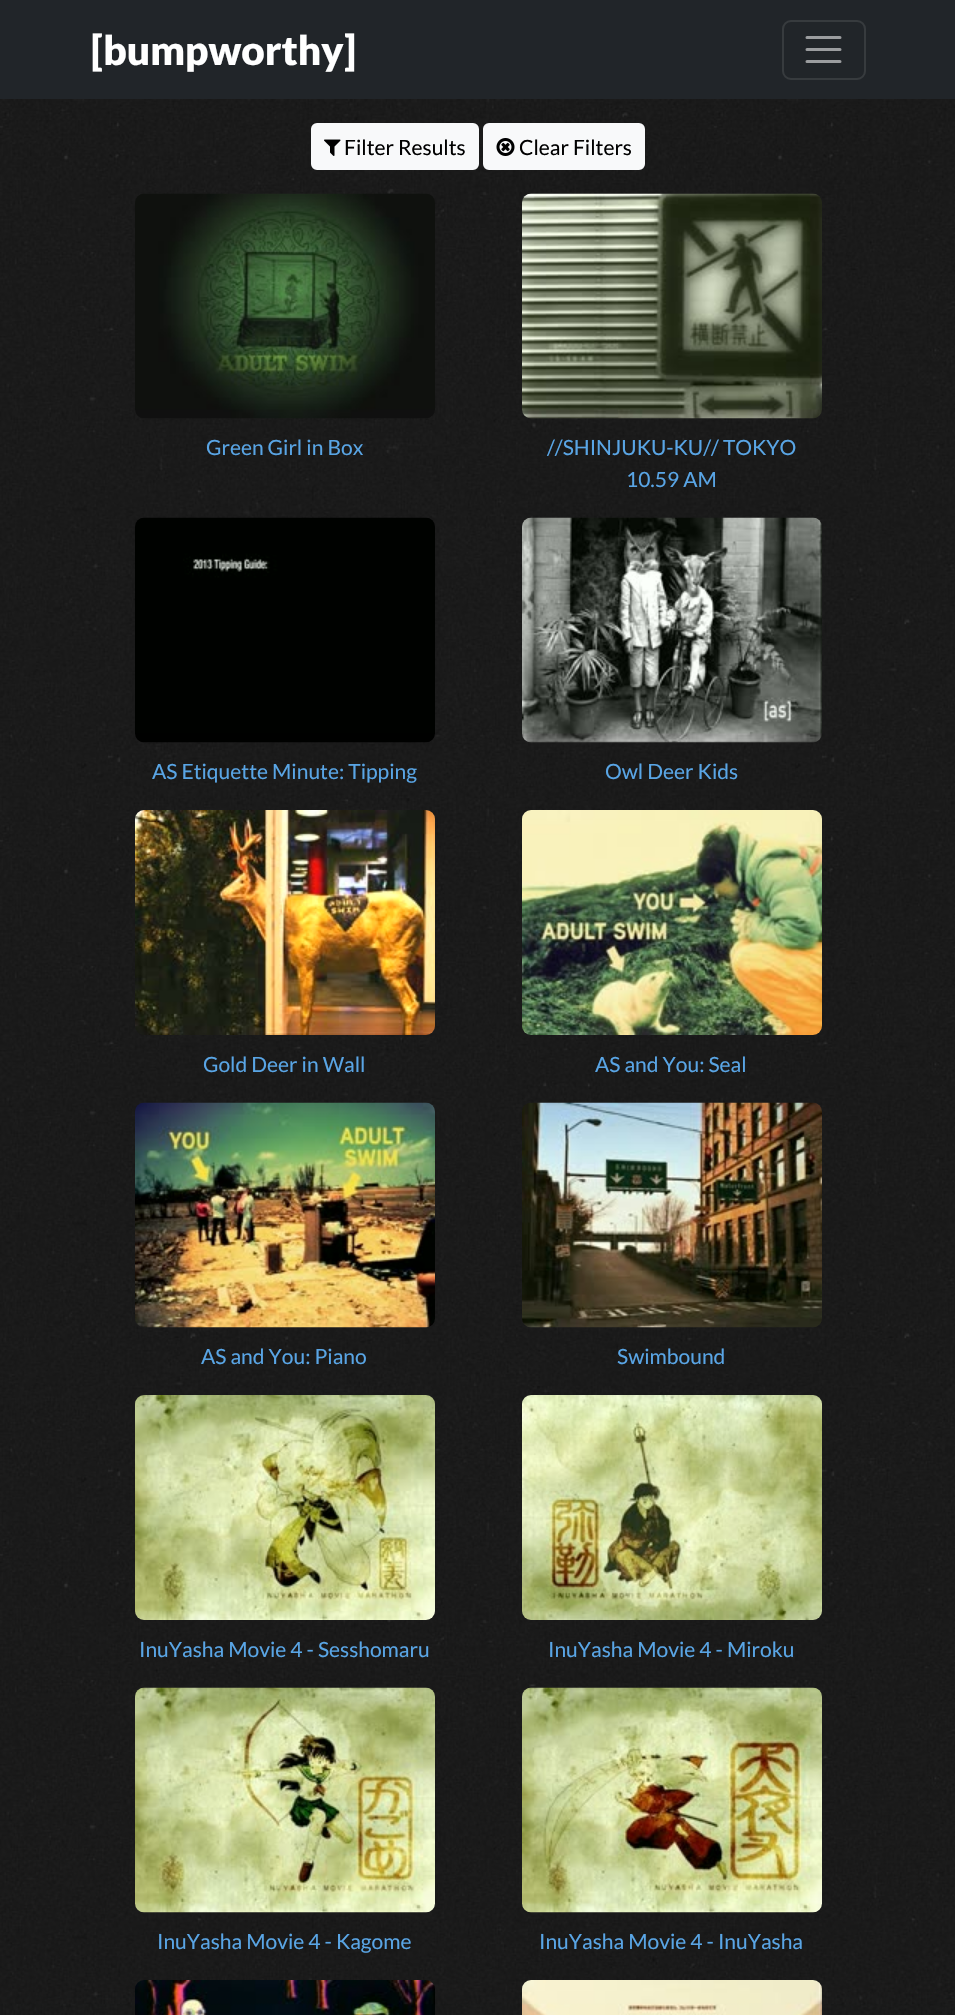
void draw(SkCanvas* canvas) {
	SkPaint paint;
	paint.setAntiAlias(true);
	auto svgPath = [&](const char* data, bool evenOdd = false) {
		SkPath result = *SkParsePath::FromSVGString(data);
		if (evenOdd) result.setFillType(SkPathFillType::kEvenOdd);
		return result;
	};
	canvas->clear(0xffffffff);
	canvas->drawImageRect(SkImages::DeferredFromEncodedData(SkData::MakeFromFileName("img1.png")), SkRect::MakeXYWH(0, 99, 955, 1916), SkSamplingOptions());
	paint.setColor(0xff212529);
	canvas->drawRect(SkRect::MakeXYWH(0, 0, 955, 99), paint);
	SkFont f1(fontMgr->matchFamilyStyle("Lato", SkFontStyle(900, SkFontStyle::kNormal_Width, SkFontStyle::kUpright_Slant)), 40.5);
	f1.setSubpixel(true);
	paint.setColor(0xffffffff);
	canvas->drawString("[bumpworthy]", 91, 65, f1, paint);
	paint.setStroke(true);
	paint.setStrokeWidth(2);
	paint.setColor(0xff373b3e);
	canvas->drawRoundRect(SkRect::MakeXYWH(783, 21, 82, 58), 8, 8, paint);
	paint.setStrokeWidth(3);
	paint.setStrokeCap(SkPaint::kRound_Cap);
	paint.setColor(0xff9b9d9f);
	canvas->drawPath(svgPath("M807 37.5H840M807 49.5H840M807 61.5H840"), paint);
	paint.setStroke(false);
	paint.setColor(0xfff8f9fa);
	canvas->drawRoundRect(SkRect::MakeXYWH(312, 124, 166, 45), 5, 5, paint);
	paint.setStroke(true);
	paint.setStrokeWidth(2);
	paint.setStrokeCap(SkPaint::kButt_Cap);
	canvas->drawRoundRect(SkRect::MakeXYWH(312, 124, 166, 45), 5, 5, paint);
	canvas->drawImageRect(SkImages::DeferredFromEncodedData(SkData::MakeFromFileName("img2.png")), SkRect::MakeXYWH(324, 139, 17, 17), SkSamplingOptions());
	SkFont f2(fontMgr->matchFamilyStyle("Lato", SkFontStyle::Normal()), 21);
	f2.setSubpixel(true);
	paint.setStroke(false);
	paint.setColor(0xff000000);
	canvas->drawString("Filter Results", 344, 155, f2, paint);
	paint.setColor(0xfff8f9fa);
	canvas->drawRoundRect(SkRect::MakeXYWH(484, 124, 160, 45), 5, 5, paint);
	paint.setStroke(true);
	canvas->drawRoundRect(SkRect::MakeXYWH(484, 124, 160, 45), 5, 5, paint);
	canvas->drawImageRect(SkImages::DeferredFromEncodedData(SkData::MakeFromFileName("img3.png")), SkRect::MakeXYWH(496, 138, 19, 18), SkSamplingOptions());
	paint.setStroke(false);
	paint.setColor(0xff000000);
	canvas->drawString("Clear Filters", 519, 155, f2, paint);
	canvas->drawImageRect(SkImages::DeferredFromEncodedData(SkData::MakeFromFileName("img4.png")), SkRect::MakeXYWH(135, 193, 300, 226), SkSamplingOptions());
	paint.setColor(0xff59a5e5);
	canvas->drawString("Green Girl in Box", 206, 455, f2, paint);
	canvas->drawImageRect(SkImages::DeferredFromEncodedData(SkData::MakeFromFileName("img5.png")), SkRect::MakeXYWH(522, 193, 300, 226), SkSamplingOptions());
	canvas->drawString("//SHINJUKU-KU// TOKYO", 547, 455, f2, paint);
	canvas->drawString("10.59 AM", 626, 487, f2, paint);
	canvas->drawImageRect(SkImages::DeferredFromEncodedData(SkData::MakeFromFileName("img6.png")), SkRect::MakeXYWH(135, 517, 300, 226), SkSamplingOptions());
	canvas->drawString("AS Etiquette Minute: Tipping", 152, 779, f2, paint);
	canvas->drawImageRect(SkImages::DeferredFromEncodedData(SkData::MakeFromFileName("img7.png")), SkRect::MakeXYWH(522, 517, 300, 226), SkSamplingOptions());
	canvas->drawString("Owl Deer Kids", 605, 779, f2, paint);
	canvas->drawImageRect(SkImages::DeferredFromEncodedData(SkData::MakeFromFileName("img8.png")), SkRect::MakeXYWH(135, 810, 300, 225), SkSamplingOptions());
	canvas->drawString("Gold Deer in Wall", 203, 1072, f2, paint);
	canvas->drawImageRect(SkImages::DeferredFromEncodedData(SkData::MakeFromFileName("img9.png")), SkRect::MakeXYWH(522, 810, 300, 225), SkSamplingOptions());
	canvas->drawString("AS and You: Seal", 595, 1072, f2, paint);
	canvas->drawImageRect(SkImages::DeferredFromEncodedData(SkData::MakeFromFileName("img10.png")), SkRect::MakeXYWH(135, 1102, 300, 226), SkSamplingOptions());
	canvas->drawString("AS and You: Piano", 201, 1364, f2, paint);
	canvas->drawImageRect(SkImages::DeferredFromEncodedData(SkData::MakeFromFileName("img11.png")), SkRect::MakeXYWH(522, 1102, 300, 226), SkSamplingOptions());
	canvas->drawString("Swimbound", 617, 1364, f2, paint);
	canvas->drawImageRect(SkImages::DeferredFromEncodedData(SkData::MakeFromFileName("img12.png")), SkRect::MakeXYWH(135, 1395, 300, 225), SkSamplingOptions());
	canvas->drawString("InuYasha Movie 4 - Sesshomaru", 139, 1657, f2, paint);
	canvas->drawImageRect(SkImages::DeferredFromEncodedData(SkData::MakeFromFileName("img13.png")), SkRect::MakeXYWH(522, 1395, 300, 225), SkSamplingOptions());
	canvas->drawString("InuYasha Movie 4 - Miroku", 548, 1657, f2, paint);
	canvas->drawImageRect(SkImages::DeferredFromEncodedData(SkData::MakeFromFileName("img14.png")), SkRect::MakeXYWH(135, 1687, 300, 226), SkSamplingOptions());
	canvas->drawString("InuYasha Movie 4 - Kagome", 157, 1949, f2, paint);
	canvas->drawImageRect(SkImages::DeferredFromEncodedData(SkData::MakeFromFileName("img15.png")), SkRect::MakeXYWH(522, 1687, 300, 226), SkSamplingOptions());
	canvas->drawString("InuYasha Movie 4 - InuYasha", 539, 1949, f2, paint);
	canvas->drawImageRect(SkImages::DeferredFromEncodedData(SkData::MakeFromFileName("img16.png")), SkRect::MakeXYWH(135, 1980, 300, 35), SkSamplingOptions());
	canvas->drawImageRect(SkImages::DeferredFromEncodedData(SkData::MakeFromFileName("img17.png")), SkRect::MakeXYWH(522, 1980, 300, 35), SkSamplingOptions());
}
